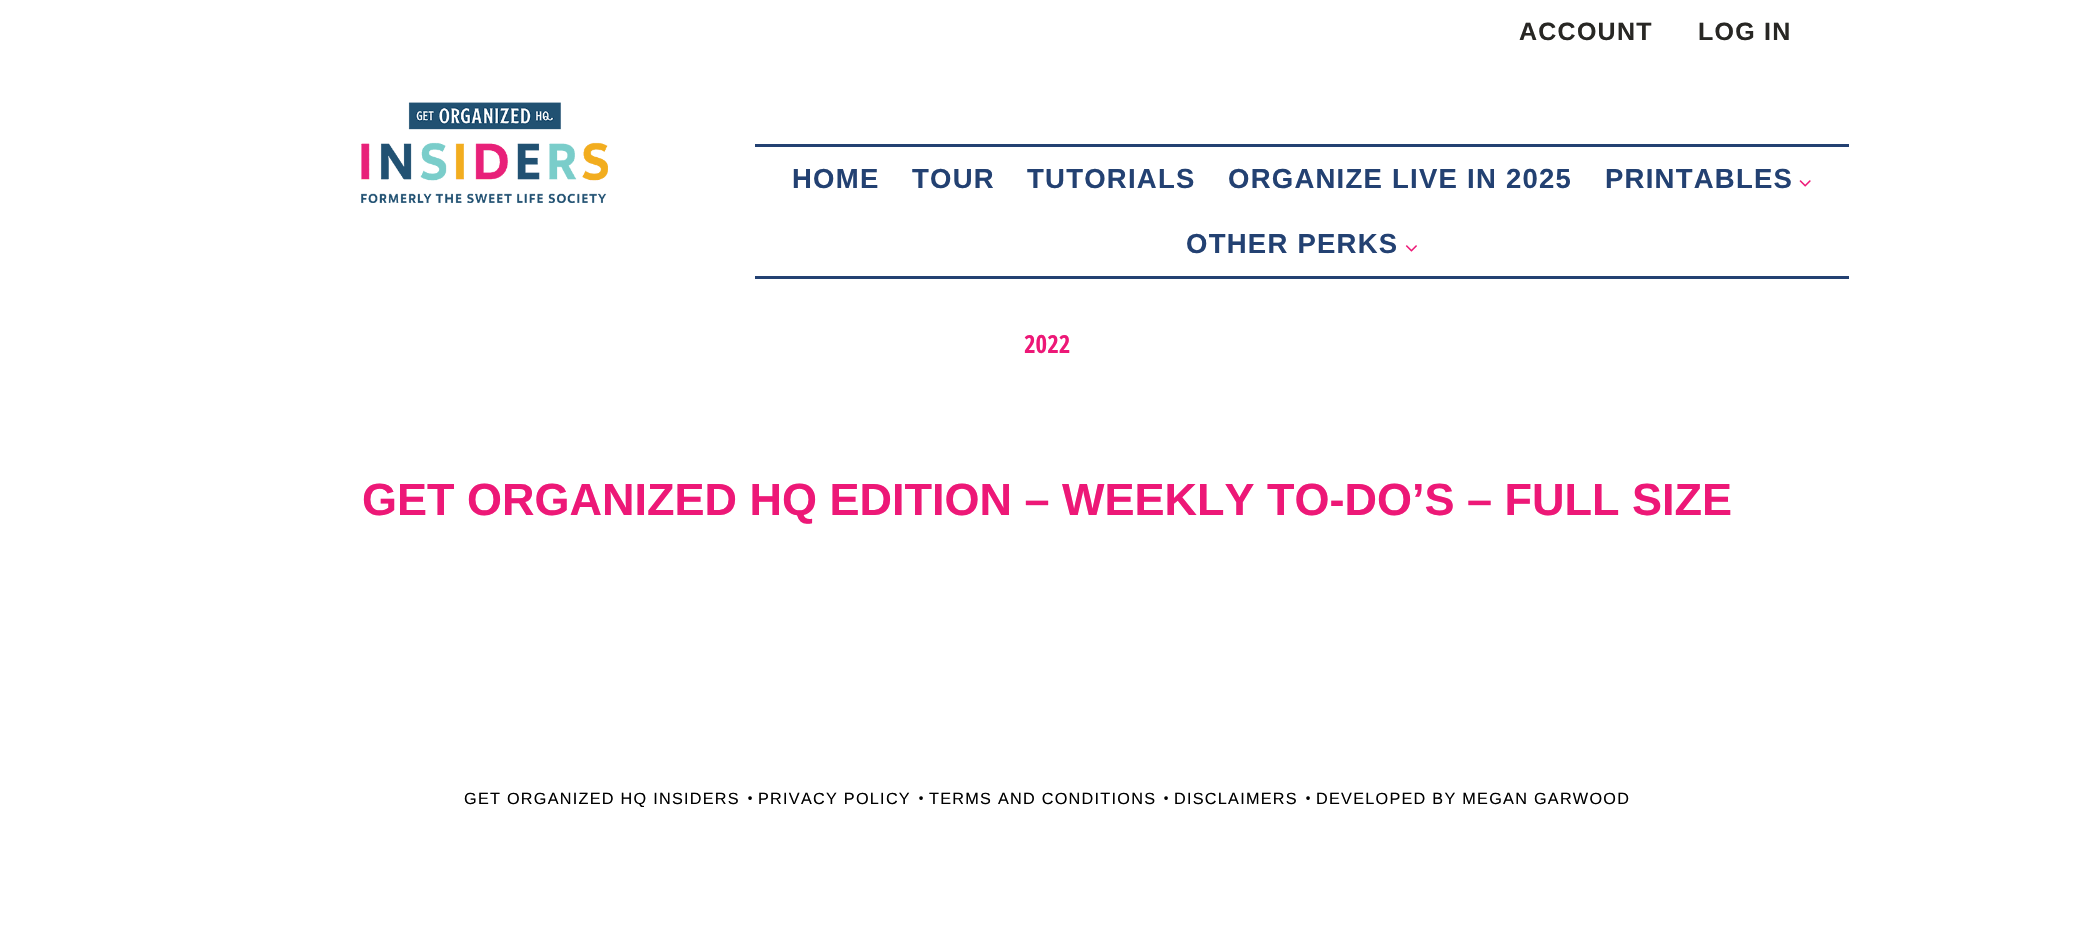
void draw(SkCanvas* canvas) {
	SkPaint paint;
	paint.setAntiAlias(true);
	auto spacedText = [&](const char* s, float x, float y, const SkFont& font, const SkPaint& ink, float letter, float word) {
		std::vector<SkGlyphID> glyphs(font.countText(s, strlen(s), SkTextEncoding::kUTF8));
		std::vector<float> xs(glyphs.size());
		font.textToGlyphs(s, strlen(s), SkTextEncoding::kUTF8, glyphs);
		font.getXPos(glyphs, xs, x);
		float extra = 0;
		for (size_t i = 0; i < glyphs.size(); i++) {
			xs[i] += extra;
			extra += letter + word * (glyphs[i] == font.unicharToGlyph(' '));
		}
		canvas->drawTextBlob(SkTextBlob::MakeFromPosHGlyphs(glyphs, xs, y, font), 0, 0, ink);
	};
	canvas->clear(0xffffffff);
	SkFont f1(fontMgr->matchFamilyStyle("Liberation Sans", SkFontStyle::Bold()), 25);
	f1.setSubpixel(true);
	paint.setColor(0xff282724);
	spacedText("ACCOUNT", 1519, 40, f1, paint, 1.25, 0);
	spacedText("LOG IN", 1698, 40, f1, paint, 1.25, 0);
	canvas->drawImageRect(SkImages::DeferredFromEncodedData(SkData::MakeFromFileName("img1.png")), SkRect::MakeXYWH(361, 102, 247, 101), SkSamplingOptions());
	paint.setColor(0xff234172);
	canvas->drawRect(SkRect::MakeXYWH(755, 144, 1094, 3), paint);
	canvas->drawRect(SkRect::MakeXYWH(755, 276, 1094, 3), paint);
	SkFont f2(fontMgr->matchFamilyStyle("Liberation Sans", SkFontStyle::Bold()), 27.5);
	f2.setSubpixel(true);
	spacedText("HOME", 792, 188, f2, paint, 1.25, 0);
	spacedText("TOUR", 912, 188, f2, paint, 1.25, 0);
	spacedText("TUTORIALS", 1027, 188, f2, paint, 1.25, 0);
	spacedText("ORGANIZE LIVE IN 2025", 1228, 188, f2, paint, 1.25, 0);
	spacedText("PRINTABLES", 1605, 188, f2, paint, 1.25, 0);
	canvas->drawImageRect(SkImages::DeferredFromEncodedData(SkData::MakeFromFileName("img2.png")), SkRect::MakeXYWH(1799, 180, 12, 7), SkSamplingOptions());
	spacedText("OTHER PERKS", 1186, 253, f2, paint, 1.25, 0);
	canvas->drawImageRect(SkImages::DeferredFromEncodedData(SkData::MakeFromFileName("img3.png")), SkRect::MakeXYWH(1405, 245, 12, 7), SkSamplingOptions());
	SkFont f3(fontMgr->matchFamilyStyle("Open Sans Condensed", SkFontStyle::Bold()), 25);
	f3.setSubpixel(true);
	paint.setColor(0xffed1877);
	canvas->drawString("2022", 1024, 353, f3, paint);
	SkFont f4(fontMgr->matchFamilyStyle("Liberation Sans", SkFontStyle::Bold()), 45);
	f4.setSubpixel(true);
	canvas->drawString("GET ORGANIZED HQ EDITION – WEEKLY TO-DO’S – FULL SIZE", 362, 515, f4, paint);
	SkFont f5(fontMgr->matchFamilyStyle("Liberation Sans", SkFontStyle::Normal()), 16.25);
	f5.setSubpixel(true);
	paint.setColor(0xff000000);
	spacedText("GET ORGANIZED HQ INSIDERS", 464, 804, f5, paint, 1.25, 0);
	SkFont f6(fontMgr->matchFamilyStyle("Open Sans Condensed", SkFontStyle(300, SkFontStyle::kNormal_Width, SkFontStyle::kUpright_Slant)), 16.25);
	f6.setSubpixel(true);
	spacedText("•", 747, 804, f6, paint, 1.25, 0);
	spacedText("PRIVACY POLICY", 758, 804, f5, paint, 1.25, 0);
	spacedText("•", 918, 804, f6, paint, 1.25, 0);
	spacedText("TERMS AND CONDITIONS", 929, 804, f5, paint, 1.25, 0);
	spacedText("•", 1163, 804, f6, paint, 1.25, 0);
	spacedText("DISCLAIMERS", 1174, 804, f5, paint, 1.25, 0);
	spacedText("•", 1305, 804, f6, paint, 1.25, 0);
	spacedText("DEVELOPED BY MEGAN GARWOOD", 1316, 804, f5, paint, 1.25, 0);
}
